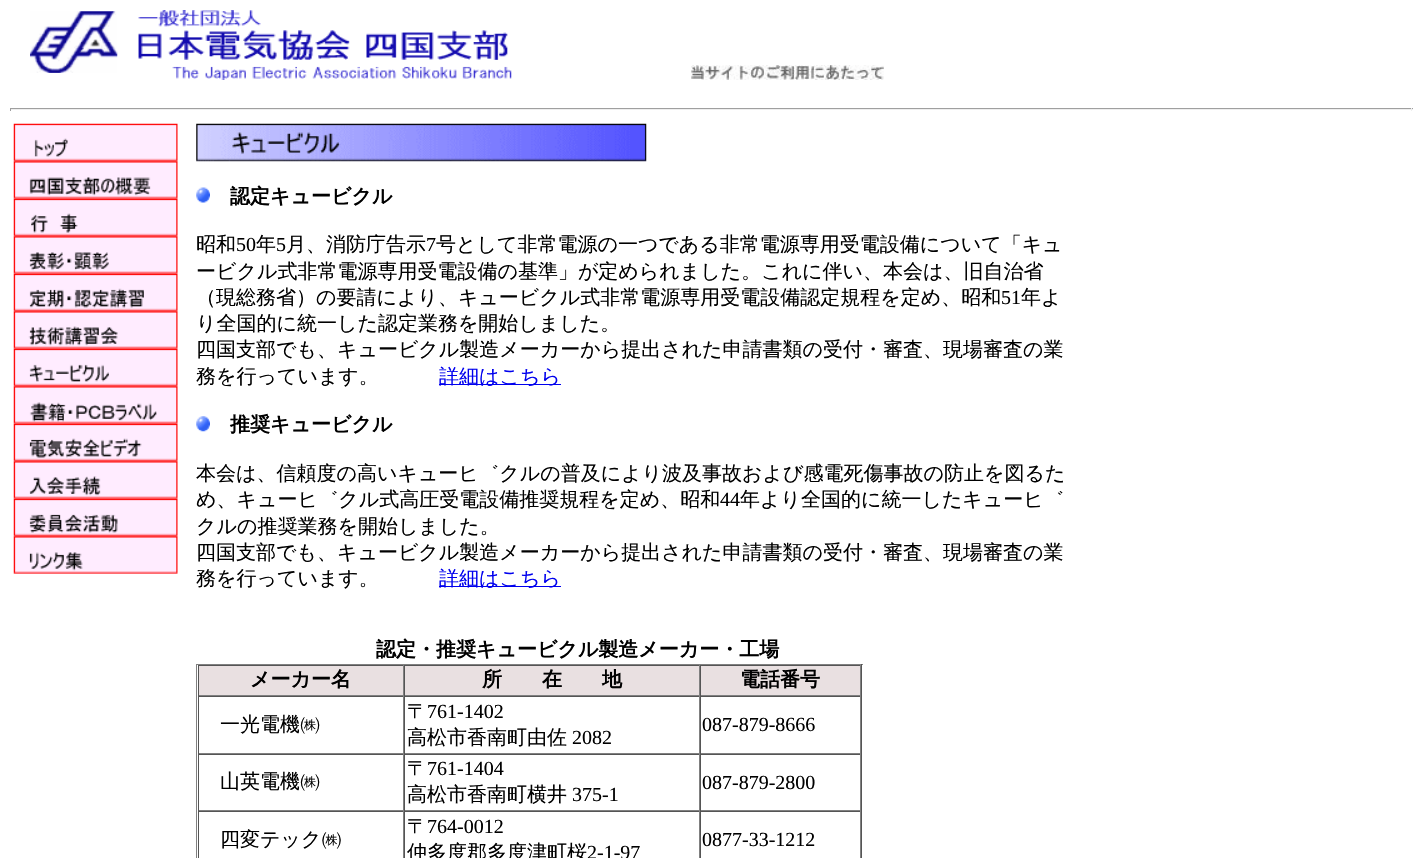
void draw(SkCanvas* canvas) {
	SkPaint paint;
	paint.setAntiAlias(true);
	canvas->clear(0xffffffff);
	canvas->drawImageRect(SkImages::DeferredFromEncodedData(SkData::MakeFromFileName("img1.png")), SkRect::MakeXYWH(30, 10, 482, 70), SkSamplingOptions());
	canvas->drawImageRect(SkImages::DeferredFromEncodedData(SkData::MakeFromFileName("img2.png")), SkRect::MakeXYWH(691, 65, 193, 15), SkSamplingOptions());
	paint.setColor(0xff9f9f9f);
	canvas->drawRect(SkRect::MakeXYWH(10, 108, 1403, 1), paint);
	paint.setColor(0xffeeeeee);
	canvas->drawRect(SkRect::MakeXYWH(1411, 108, 1, 3), paint);
	canvas->drawRect(SkRect::MakeXYWH(10, 109, 1403, 1), paint);
	paint.setColor(0xff9f9f9f);
	canvas->drawRect(SkRect::MakeXYWH(10, 108, 1, 3), paint);
	canvas->drawImageRect(SkImages::DeferredFromEncodedData(SkData::MakeFromFileName("img3.png")), SkRect::MakeXYWH(13, 123, 165, 39), SkSamplingOptions());
	canvas->drawImageRect(SkImages::DeferredFromEncodedData(SkData::MakeFromFileName("img4.png")), SkRect::MakeXYWH(13, 161, 165, 38), SkSamplingOptions());
	canvas->drawImageRect(SkImages::DeferredFromEncodedData(SkData::MakeFromFileName("img5.png")), SkRect::MakeXYWH(13, 198, 165, 39), SkSamplingOptions());
	canvas->drawImageRect(SkImages::DeferredFromEncodedData(SkData::MakeFromFileName("img6.png")), SkRect::MakeXYWH(13, 236, 165, 38), SkSamplingOptions());
	canvas->drawImageRect(SkImages::DeferredFromEncodedData(SkData::MakeFromFileName("img7.png")), SkRect::MakeXYWH(13, 273, 165, 39), SkSamplingOptions());
	canvas->drawImageRect(SkImages::DeferredFromEncodedData(SkData::MakeFromFileName("img8.png")), SkRect::MakeXYWH(13, 311, 165, 38), SkSamplingOptions());
	canvas->drawImageRect(SkImages::DeferredFromEncodedData(SkData::MakeFromFileName("img9.png")), SkRect::MakeXYWH(13, 348, 165, 39), SkSamplingOptions());
	canvas->drawImageRect(SkImages::DeferredFromEncodedData(SkData::MakeFromFileName("img10.png")), SkRect::MakeXYWH(13, 386, 165, 38), SkSamplingOptions());
	canvas->drawImageRect(SkImages::DeferredFromEncodedData(SkData::MakeFromFileName("img11.png")), SkRect::MakeXYWH(13, 423, 165, 39), SkSamplingOptions());
	canvas->drawImageRect(SkImages::DeferredFromEncodedData(SkData::MakeFromFileName("img12.png")), SkRect::MakeXYWH(13, 461, 165, 38), SkSamplingOptions());
	canvas->drawImageRect(SkImages::DeferredFromEncodedData(SkData::MakeFromFileName("img13.png")), SkRect::MakeXYWH(13, 498, 165, 39), SkSamplingOptions());
	canvas->drawImageRect(SkImages::DeferredFromEncodedData(SkData::MakeFromFileName("img14.png")), SkRect::MakeXYWH(13, 536, 165, 38), SkSamplingOptions());
	canvas->drawImageRect(SkImages::DeferredFromEncodedData(SkData::MakeFromFileName("img15.png")), SkRect::MakeXYWH(196, 123, 451, 39), SkSamplingOptions());
	canvas->drawImageRect(SkImages::DeferredFromEncodedData(SkData::MakeFromFileName("img16.png")), SkRect::MakeXYWH(196, 187, 14, 16), SkSamplingOptions());
	SkFont f1(fontMgr->matchFamilyStyle("WenQuanYi Zen Hei", SkFontStyle::Bold()), 20);
	f1.setSubpixel(true);
	paint.setColor(0xff000000);
	canvas->drawString("認定キュービクル", 230, 203, f1, paint);
	SkFont f2(fontMgr->matchFamilyStyle("WenQuanYi Zen Hei", SkFontStyle(500, SkFontStyle::kNormal_Width, SkFontStyle::kUpright_Slant)), 20);
	f2.setSubpixel(true);
	canvas->drawString("昭和", 196, 251, f2, paint);
	SkFont f3(fontMgr->matchFamilyStyle("Liberation Serif", SkFontStyle::Normal()), 20);
	f3.setSubpixel(true);
	canvas->drawString("50", 236, 251, f3, paint);
	canvas->drawString("年", 256, 251, f2, paint);
	canvas->drawString("5", 276, 251, f3, paint);
	canvas->drawString("月、消防庁告示", 286, 251, f2, paint);
	canvas->drawString("7", 426, 251, f3, paint);
	canvas->drawString("号として非常電源の一つである非常電源専用受電設備について「キュ", 436, 251, f2, paint);
	canvas->drawString("ービクル式非常電源専用受電設備の基準」が定められました。これに伴い、本会は、旧自治省", 196, 278, f2, paint);
	canvas->drawString("（現総務省）の要請により、キュービクル式非常電源専用受電設備認定規程を定め、昭和", 196, 304, f2, paint);
	canvas->drawString("51", 1001, 304, f3, paint);
	canvas->drawString("年よ", 1021, 304, f2, paint);
	canvas->drawString("り全国的に統一した認定業務を開始しました。", 196, 330, f2, paint);
	canvas->drawString("四国支部でも、キュービクル製造メーカーから提出された申請書類の受付・審査、現場審査の業", 196, 356, f2, paint);
	canvas->drawString("務を行っています。", 196, 383, f2, paint);
	paint.setColor(0xff0000ee);
	canvas->drawRect(SkRect::MakeXYWH(439, 384, 122, 1), paint);
	canvas->drawString("詳細はこちら", 439, 383, f2, paint);
	canvas->drawImageRect(SkImages::DeferredFromEncodedData(SkData::MakeFromFileName("img17.png")), SkRect::MakeXYWH(196, 416, 14, 16), SkSamplingOptions());
	paint.setColor(0xff000000);
	canvas->drawString("推奨キュービクル", 230, 431, f1, paint);
	canvas->drawString("本会は、信頼度の高いキューヒ゛クルの普及により波及事故および感電死傷事故の防止を図るた", 196, 480, f2, paint);
	canvas->drawString("め、キューヒ゛クル式高圧受電設備推奨規程を定め、昭和", 196, 506, f2, paint);
	canvas->drawString("44", 720, 506, f3, paint);
	canvas->drawString("年より全国的に統一したキューヒ゛", 740, 506, f2, paint);
	canvas->drawString("クルの推奨業務を開始しました。", 196, 533, f2, paint);
	canvas->drawString("四国支部でも、キュービクル製造メーカーから提出された申請書類の受付・審査、現場審査の業", 196, 559, f2, paint);
	canvas->drawString("務を行っています。", 196, 585, f2, paint);
	paint.setColor(0xff0000ee);
	canvas->drawRect(SkRect::MakeXYWH(439, 586, 122, 1), paint);
	canvas->drawString("詳細はこちら", 439, 585, f2, paint);
	paint.setColor(0xff000000);
	canvas->drawString("認定・推奨キュービクル製造メーカー・工場", 376, 656, f1, paint);
	paint.setColor(0xff808080);
	canvas->drawRect(SkRect::MakeXYWH(196, 664, 667, 1), paint);
	paint.setColor(0xff555555);
	canvas->drawRect(SkRect::MakeXYWH(861, 664, 1, 194), paint);
	paint.setColor(0xff808080);
	canvas->drawRect(SkRect::MakeXYWH(196, 664, 1, 194), paint);
	paint.setColor(0xffe9e0e1);
	canvas->drawRect(SkRect::MakeXYWH(199, 666, 204, 29), paint);
	paint.setColor(0xff555555);
	canvas->drawRect(SkRect::MakeXYWH(198, 665, 663, 1), paint);
	paint.setColor(0xff808080);
	canvas->drawRect(SkRect::MakeXYWH(403, 665, 1, 31), paint);
	canvas->drawRect(SkRect::MakeXYWH(198, 695, 206, 1), paint);
	paint.setColor(0xff555555);
	canvas->drawRect(SkRect::MakeXYWH(198, 665, 1, 31), paint);
	paint.setColor(0xff000000);
	canvas->drawString("メーカー名", 250, 686, f1, paint);
	paint.setColor(0xffe9e0e1);
	canvas->drawRect(SkRect::MakeXYWH(405, 666, 294, 29), paint);
	paint.setColor(0xff808080);
	canvas->drawRect(SkRect::MakeXYWH(699, 665, 1, 31), paint);
	canvas->drawRect(SkRect::MakeXYWH(404, 695, 296, 1), paint);
	paint.setColor(0xff555555);
	canvas->drawRect(SkRect::MakeXYWH(404, 665, 1, 31), paint);
	paint.setColor(0xff000000);
	canvas->drawString("所　　在　　地", 482, 686, f1, paint);
	paint.setColor(0xffe9e0e1);
	canvas->drawRect(SkRect::MakeXYWH(701, 666, 159, 29), paint);
	paint.setColor(0xff808080);
	canvas->drawRect(SkRect::MakeXYWH(860, 665, 1, 31), paint);
	canvas->drawRect(SkRect::MakeXYWH(700, 695, 161, 1), paint);
	paint.setColor(0xff555555);
	canvas->drawRect(SkRect::MakeXYWH(700, 665, 1, 31), paint);
	paint.setColor(0xff000000);
	canvas->drawString("電話番号", 740, 686, f1, paint);
	paint.setColor(0xff555555);
	canvas->drawRect(SkRect::MakeXYWH(198, 696, 663, 1), paint);
	paint.setColor(0xff808080);
	canvas->drawRect(SkRect::MakeXYWH(403, 696, 1, 58), paint);
	canvas->drawRect(SkRect::MakeXYWH(198, 753, 206, 1), paint);
	paint.setColor(0xff555555);
	canvas->drawRect(SkRect::MakeXYWH(198, 696, 1, 58), paint);
	paint.setColor(0xff000000);
	canvas->drawString("一光電機㈱", 220, 731, f2, paint);
	paint.setColor(0xff808080);
	canvas->drawRect(SkRect::MakeXYWH(699, 696, 1, 58), paint);
	canvas->drawRect(SkRect::MakeXYWH(404, 753, 296, 1), paint);
	paint.setColor(0xff555555);
	canvas->drawRect(SkRect::MakeXYWH(404, 696, 1, 58), paint);
	paint.setColor(0xff000000);
	canvas->drawString("〒", 407, 718, f2, paint);
	canvas->drawString("761-1402", 427, 718, f3, paint);
	canvas->drawString("高松市香南町由佐", 407, 744, f2, paint);
	canvas->drawString("2082", 572, 744, f3, paint);
	paint.setColor(0xff808080);
	canvas->drawRect(SkRect::MakeXYWH(860, 696, 1, 58), paint);
	canvas->drawRect(SkRect::MakeXYWH(700, 753, 161, 1), paint);
	paint.setColor(0xff555555);
	canvas->drawRect(SkRect::MakeXYWH(700, 696, 1, 58), paint);
	paint.setColor(0xff000000);
	canvas->drawString("087-879-8666", 702, 731, f3, paint);
	paint.setColor(0xff555555);
	canvas->drawRect(SkRect::MakeXYWH(198, 754, 663, 1), paint);
	paint.setColor(0xff808080);
	canvas->drawRect(SkRect::MakeXYWH(403, 754, 1, 57), paint);
	canvas->drawRect(SkRect::MakeXYWH(198, 810, 206, 1), paint);
	paint.setColor(0xff555555);
	canvas->drawRect(SkRect::MakeXYWH(198, 754, 1, 57), paint);
	paint.setColor(0xff000000);
	canvas->drawString("山英電機㈱", 220, 788, f2, paint);
	paint.setColor(0xff808080);
	canvas->drawRect(SkRect::MakeXYWH(699, 754, 1, 57), paint);
	canvas->drawRect(SkRect::MakeXYWH(404, 810, 296, 1), paint);
	paint.setColor(0xff555555);
	canvas->drawRect(SkRect::MakeXYWH(404, 754, 1, 57), paint);
	paint.setColor(0xff000000);
	canvas->drawString("〒", 407, 775, f2, paint);
	canvas->drawString("761-1404", 427, 775, f3, paint);
	canvas->drawString("高松市香南町横井", 407, 801, f2, paint);
	canvas->drawString("375-1", 572, 801, f3, paint);
	paint.setColor(0xff808080);
	canvas->drawRect(SkRect::MakeXYWH(860, 754, 1, 57), paint);
	canvas->drawRect(SkRect::MakeXYWH(700, 810, 161, 1), paint);
	paint.setColor(0xff555555);
	canvas->drawRect(SkRect::MakeXYWH(700, 754, 1, 57), paint);
	paint.setColor(0xff000000);
	canvas->drawString("087-879-2800", 702, 789, f3, paint);
	paint.setColor(0xff555555);
	canvas->drawRect(SkRect::MakeXYWH(198, 811, 663, 1), paint);
	paint.setColor(0xff808080);
	canvas->drawRect(SkRect::MakeXYWH(403, 811, 1, 47), paint);
	paint.setColor(0xff555555);
	canvas->drawRect(SkRect::MakeXYWH(198, 811, 1, 47), paint);
	paint.setColor(0xff000000);
	canvas->drawString("四変テック㈱", 220, 846, f2, paint);
	paint.setColor(0xff808080);
	canvas->drawRect(SkRect::MakeXYWH(699, 811, 1, 47), paint);
	paint.setColor(0xff555555);
	canvas->drawRect(SkRect::MakeXYWH(404, 811, 1, 47), paint);
	paint.setColor(0xff000000);
	canvas->drawString("〒", 407, 833, f2, paint);
	canvas->drawString("764-0012", 427, 833, f3, paint);
	canvas->drawString("仲多度郡多度津町桜", 407, 859, f2, paint);
	canvas->drawString("2-1-97", 587, 859, f3, paint);
	paint.setColor(0xff808080);
	canvas->drawRect(SkRect::MakeXYWH(860, 811, 1, 47), paint);
	paint.setColor(0xff555555);
	canvas->drawRect(SkRect::MakeXYWH(700, 811, 1, 47), paint);
	paint.setColor(0xff000000);
	canvas->drawString("0877-33-1212", 702, 846, f3, paint);
}
